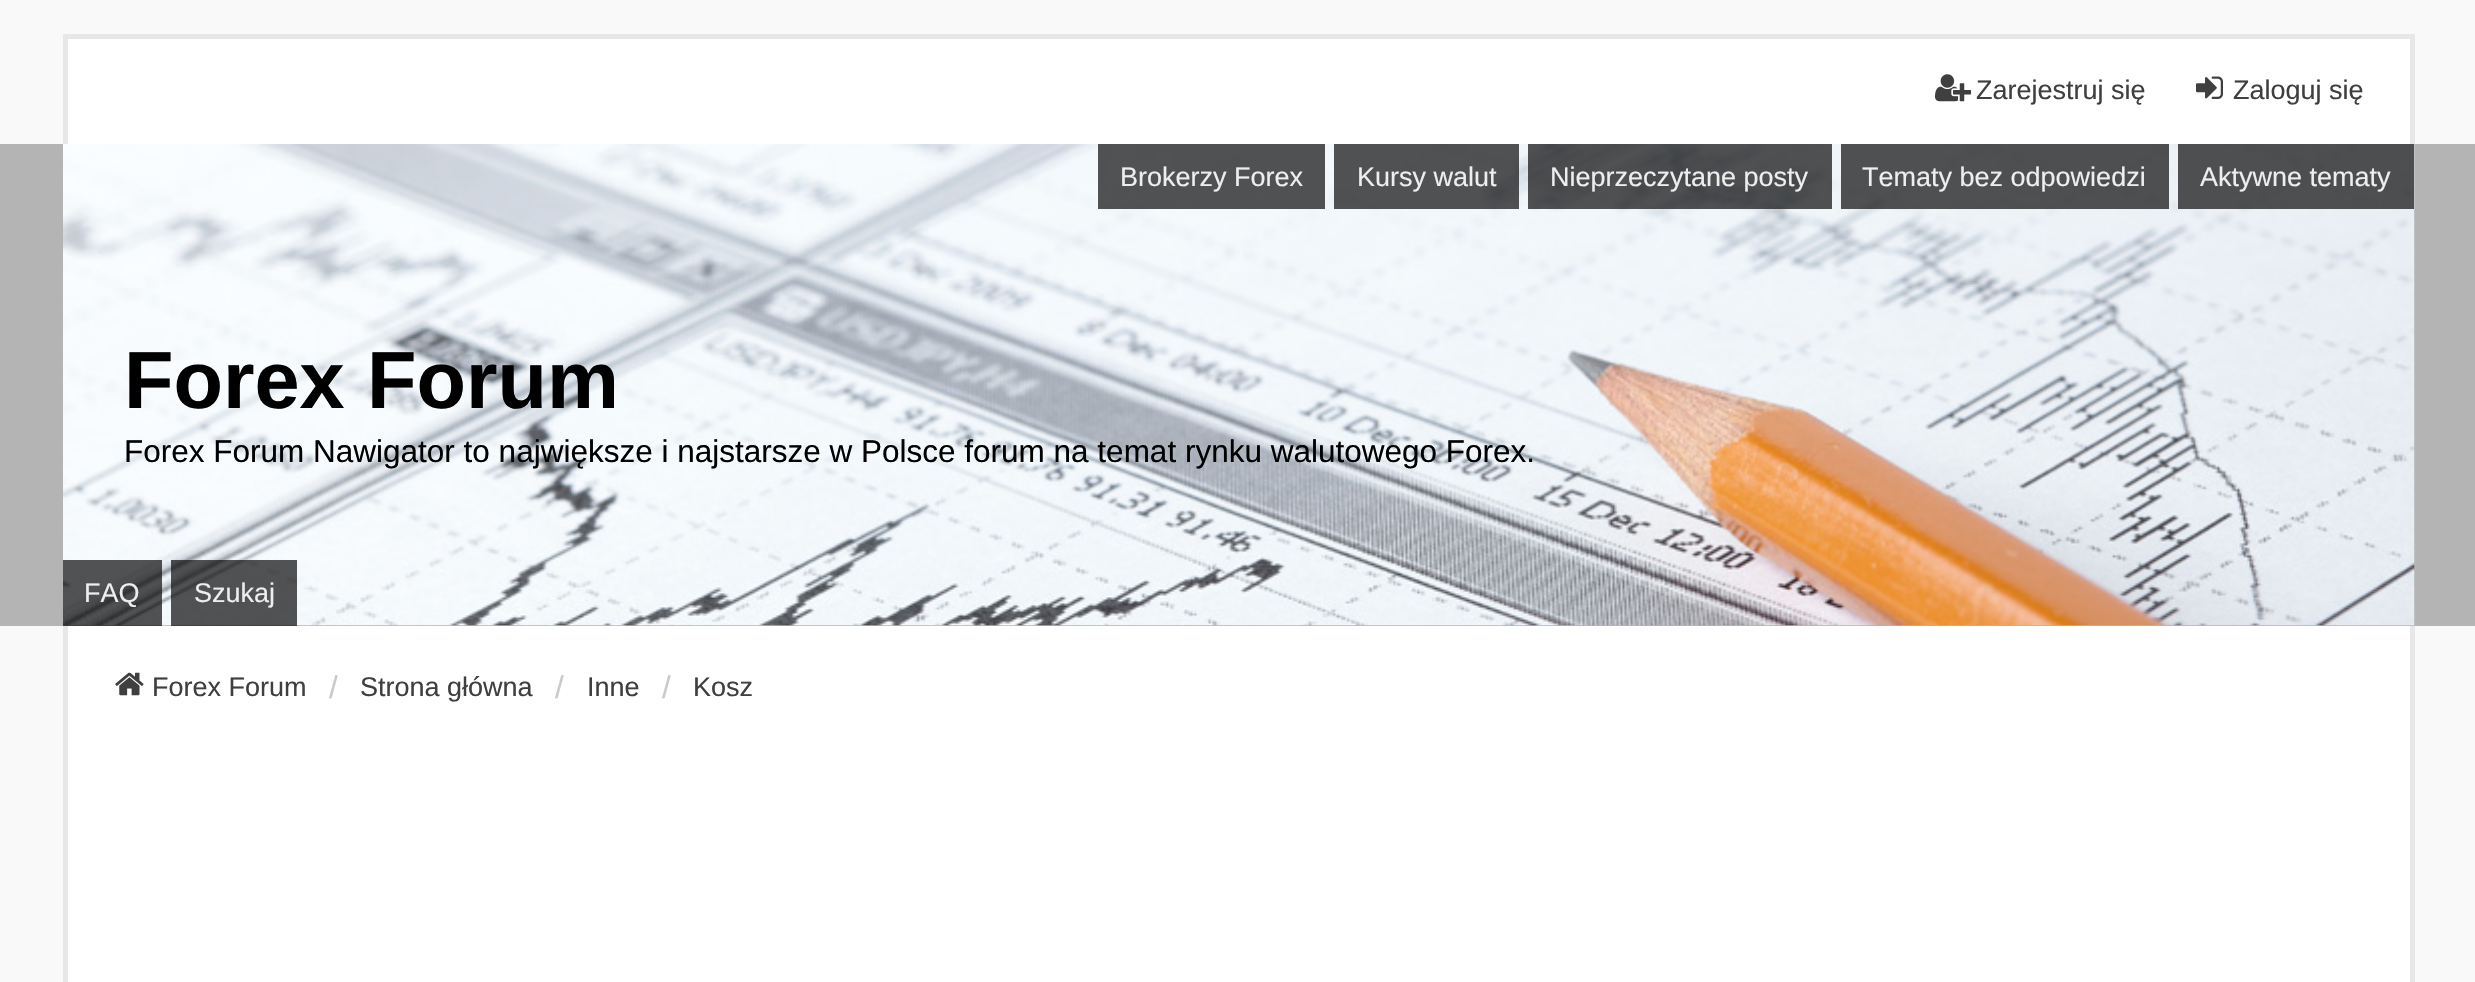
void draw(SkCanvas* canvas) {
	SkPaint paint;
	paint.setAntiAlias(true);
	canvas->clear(0xfff9f9f9);
	paint.setColor(0xffffffff);
	canvas->drawRect(SkRect::MakeXYWH(68, 39, 2342, 105), paint);
	paint.setColor(0xffe7e7e7);
	canvas->drawRect(SkRect::MakeXYWH(63, 34, 2351, 5), paint);
	canvas->drawRect(SkRect::MakeXYWH(2410, 34, 5, 110), paint);
	canvas->drawRect(SkRect::MakeXYWH(63, 34, 5, 110), paint);
	canvas->drawImageRect(SkImages::DeferredFromEncodedData(SkData::MakeFromFileName("img1.png")), SkRect::MakeXYWH(1935, 74, 36, 28), SkSamplingOptions());
	SkFont f1(fontMgr->matchFamilyStyle("Liberation Sans", SkFontStyle::Normal()), 27);
	f1.setSubpixel(true);
	paint.setColor(0xff3f3f3f);
	canvas->drawString("Zarejestruj się", 1976, 99, f1, paint);
	canvas->drawImageRect(SkImages::DeferredFromEncodedData(SkData::MakeFromFileName("img2.png")), SkRect::MakeXYWH(2196, 76, 27, 23), SkSamplingOptions());
	canvas->drawString("Zaloguj się", 2233, 99, f1, paint);
	paint.setColor(0xffb4b4b4);
	canvas->drawRect(SkRect::MakeXYWH(0, 144, 2475, 482), paint);
	canvas->drawImageRect(SkImages::DeferredFromEncodedData(SkData::MakeFromFileName("img3.png")), SkRect::MakeXYWH(63, 144, 2352, 482), SkSamplingOptions());
	paint.setColor(0xb30a0a0a);
	canvas->drawRect(SkRect::MakeXYWH(1098, 144, 227, 65), paint);
	paint.setColor(0xffeeeeee);
	canvas->drawString("Brokerzy Forex", 1120, 186, f1, paint);
	paint.setColor(0xb30a0a0a);
	canvas->drawRect(SkRect::MakeXYWH(1334, 144, 185, 65), paint);
	paint.setColor(0xffeeeeee);
	canvas->drawString("Kursy walut", 1357, 186, f1, paint);
	paint.setColor(0xb30a0a0a);
	canvas->drawRect(SkRect::MakeXYWH(1528, 144, 304, 65), paint);
	paint.setColor(0xffeeeeee);
	canvas->drawString("Nieprzeczytane posty", 1550, 186, f1, paint);
	paint.setColor(0xb30a0a0a);
	canvas->drawRect(SkRect::MakeXYWH(1841, 144, 328, 65), paint);
	paint.setColor(0xffeeeeee);
	canvas->drawString("Tematy bez odpowiedzi", 1862, 186, f1, paint);
	paint.setColor(0xb30a0a0a);
	canvas->drawRect(SkRect::MakeXYWH(2178, 144, 236, 65), paint);
	paint.setColor(0xffeeeeee);
	canvas->drawString("Aktywne tematy", 2200, 186, f1, paint);
	SkFont f2(fontMgr->matchFamilyStyle("Liberation Sans", SkFontStyle::Bold()), 81);
	f2.setSubpixel(true);
	paint.setColor(0xff000000);
	canvas->drawString("Forex Forum", 124, 408, f2, paint);
	SkFont f3(fontMgr->matchFamilyStyle("Liberation Sans", SkFontStyle::Normal()), 31.5);
	f3.setSubpixel(true);
	canvas->drawString("Forex Forum Nawigator to największe i najstarsze w Polsce forum na temat rynku walutowego Forex.", 124, 462, f3, paint);
	paint.setColor(0xb30a0a0a);
	canvas->drawRect(SkRect::MakeXYWH(63, 560, 99, 66), paint);
	paint.setColor(0xffeeeeee);
	canvas->drawString("FAQ", 84, 602, f1, paint);
	paint.setColor(0xb30a0a0a);
	canvas->drawRect(SkRect::MakeXYWH(171, 560, 126, 66), paint);
	paint.setColor(0xffeeeeee);
	canvas->drawString("Szukaj", 194, 602, f1, paint);
	paint.setColor(0xffffffff);
	canvas->drawRect(SkRect::MakeXYWH(68, 626, 2342, 356), paint);
	paint.setColor(0xffe7e7e7);
	canvas->drawRect(SkRect::MakeXYWH(2410, 626, 5, 356), paint);
	canvas->drawRect(SkRect::MakeXYWH(63, 626, 5, 356), paint);
	canvas->drawImageRect(SkImages::DeferredFromEncodedData(SkData::MakeFromFileName("img4.png")), SkRect::MakeXYWH(115, 672, 29, 24), SkSamplingOptions());
	paint.setColor(0xff3f3f3f);
	canvas->drawString("Forex Forum", 152, 696, f1, paint);
	paint.setColor(0xffcacaca);
	canvas->drawString("/", 329, 698, f3, paint);
	paint.setColor(0xff3f3f3f);
	canvas->drawString("Strona główna", 360, 696, f1, paint);
	paint.setColor(0xffcacaca);
	canvas->drawString("/", 555, 698, f3, paint);
	paint.setColor(0xff3f3f3f);
	canvas->drawString("Inne", 587, 696, f1, paint);
	paint.setColor(0xffcacaca);
	canvas->drawString("/", 662, 698, f3, paint);
	paint.setColor(0xff3f3f3f);
	canvas->drawString("Kosz", 693, 696, f1, paint);
}
